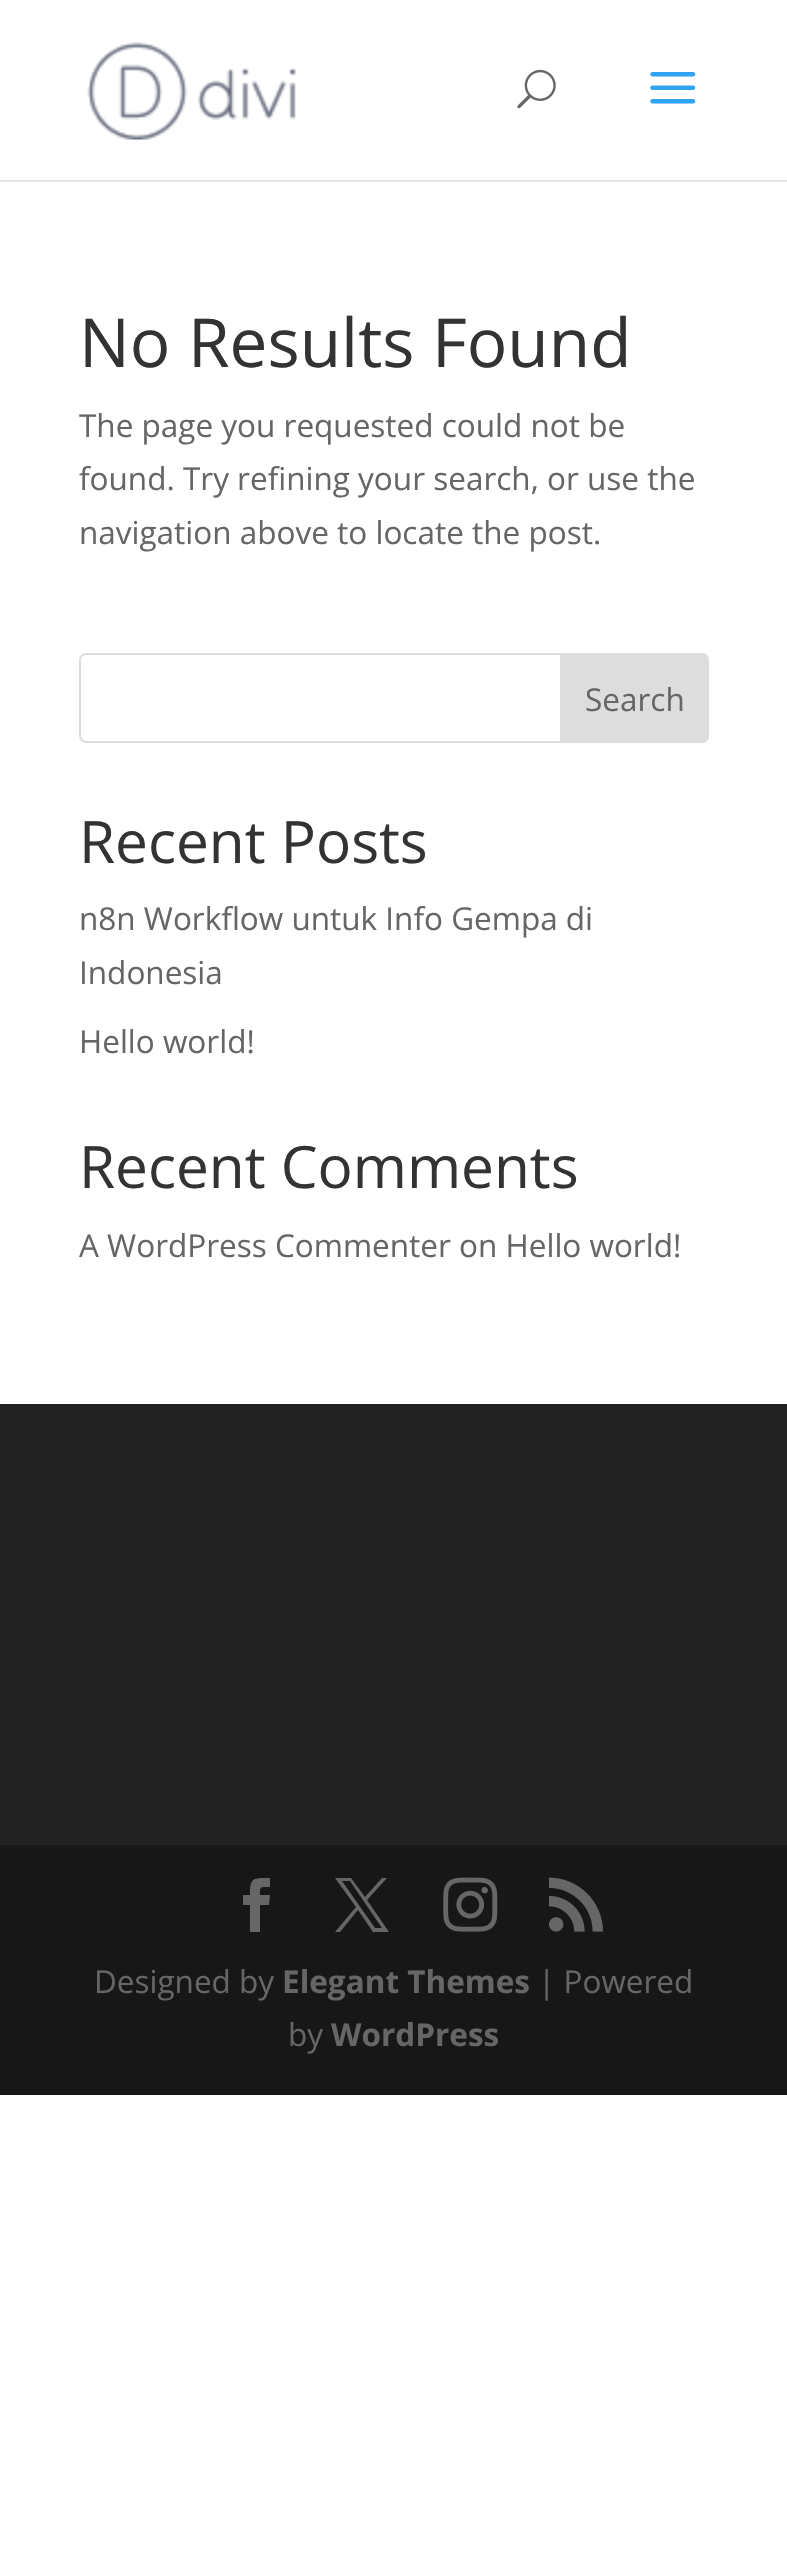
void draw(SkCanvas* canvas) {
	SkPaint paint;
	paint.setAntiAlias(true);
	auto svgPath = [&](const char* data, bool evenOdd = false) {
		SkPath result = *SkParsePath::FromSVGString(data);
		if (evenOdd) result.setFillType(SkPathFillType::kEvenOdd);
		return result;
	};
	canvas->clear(0xffffffff);
	paint.setColor(0xffe6e6e6);
	canvas->drawPath(svgPath("M0 180V182H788V2V180Z"), paint);
	canvas->drawImageRect(SkImages::DeferredFromEncodedData(SkData::MakeFromFileName("img1.png")), SkRect::MakeXYWH(87, 42, 210, 98), SkSamplingOptions());
	canvas->drawImageRect(SkImages::DeferredFromEncodedData(SkData::MakeFromFileName("img2.png")), SkRect::MakeXYWH(517, 69, 39, 40), SkSamplingOptions());
	canvas->drawImageRect(SkImages::DeferredFromEncodedData(SkData::MakeFromFileName("img3.png")), SkRect::MakeXYWH(650, 72, 46, 32), SkSamplingOptions());
	SkFont f1(fontMgr->matchFamilyStyle("Open Sans", SkFontStyle::Normal()), 67.5);
	f1.setSubpixel(true);
	paint.setColor(0xff333333);
	canvas->drawString("No Results Found", 79, 367, f1, paint);
	SkFont f2(fontMgr->matchFamilyStyle("Open Sans", SkFontStyle::Normal()), 31.5);
	f2.setSubpixel(true);
	paint.setColor(0xff666666);
	canvas->drawString("The page you requested could not be", 79, 437, f2, paint);
	canvas->drawString("found. Try refining your search, or use the", 79, 490, f2, paint);
	canvas->drawString("navigation above to locate the post.", 79, 544, f2, paint);
	paint.setStroke(true);
	paint.setStrokeWidth(2);
	paint.setColor(0xffdddddd);
	canvas->drawRoundRect(SkRect::MakeXYWH(80, 654, 628, 88), 6, 6, paint);
	paint.setStroke(false);
	canvas->drawPath(svgPath("M561 654H702C705.5 654 708 656.5 708 660V736C708 739.5 705.5 742 702 742H561Z"), paint);
	paint.setStroke(true);
	canvas->drawPath(svgPath("M561 654H702C705.5 654 708 656.5 708 660V736C708 739.5 705.5 742 702 742H561Z"), paint);
	paint.setStroke(false);
	paint.setColor(0xff666666);
	canvas->drawString("Search", 585, 711, f2, paint);
	SkFont f3(fontMgr->matchFamilyStyle("Open Sans", SkFontStyle::Normal()), 58.5);
	f3.setSubpixel(true);
	paint.setColor(0xff333333);
	canvas->drawString("Recent Posts", 79, 863, f3, paint);
	paint.setColor(0xff666666);
	canvas->drawString("n8n Workflow untuk Info Gempa di", 79, 930, f2, paint);
	canvas->drawString("Indonesia", 79, 984, f2, paint);
	canvas->drawString("Hello world!", 79, 1053, f2, paint);
	paint.setColor(0xff333333);
	canvas->drawString("Recent Comments", 79, 1188, f3, paint);
	paint.setColor(0xff666666);
	canvas->drawString("A WordPress Commenter on Hello world!", 79, 1257, f2, paint);
	paint.setColor(0xff222222);
	canvas->drawRect(SkRect::MakeXYWH(0, 1404, 787, 441), paint);
	paint.setColor(0xff171717);
	canvas->drawRect(SkRect::MakeXYWH(0, 1845, 787, 250), paint);
	paint.setColor(0xff666666);
	canvas->drawPath(svgPath("M250 1932H260V1905H269L270 1895H260C260 1886 260 1887 270 1887V1878C253 1878 250 1877 250 1895H243V1905H250Z"), paint);
	canvas->drawPath(svgPath("M335 1878L356 1907L335 1932H340L358 1910L373 1932H389L367 1900L387 1878H382L365 1897L351 1878ZM342 1881H350L382 1928H375Z"), paint);
	canvas->drawImageRect(SkImages::DeferredFromEncodedData(SkData::MakeFromFileName("img4.png")), SkRect::MakeXYWH(443, 1877, 55, 55), SkSamplingOptions());
	canvas->drawImageRect(SkImages::DeferredFromEncodedData(SkData::MakeFromFileName("img5.png")), SkRect::MakeXYWH(549, 1877, 54, 55), SkSamplingOptions());
	canvas->drawString("Designed by", 94, 1993, f2, paint);
	SkFont f4(fontMgr->matchFamilyStyle("Open Sans", SkFontStyle::Bold()), 31.5);
	f4.setSubpixel(true);
	canvas->drawString("Elegant Themes", 282, 1993, f4, paint);
	canvas->drawString("| Powered", 538, 1993, f2, paint);
	canvas->drawString("by", 288, 2046, f2, paint);
	canvas->drawString("WordPress", 331, 2046, f4, paint);
}
